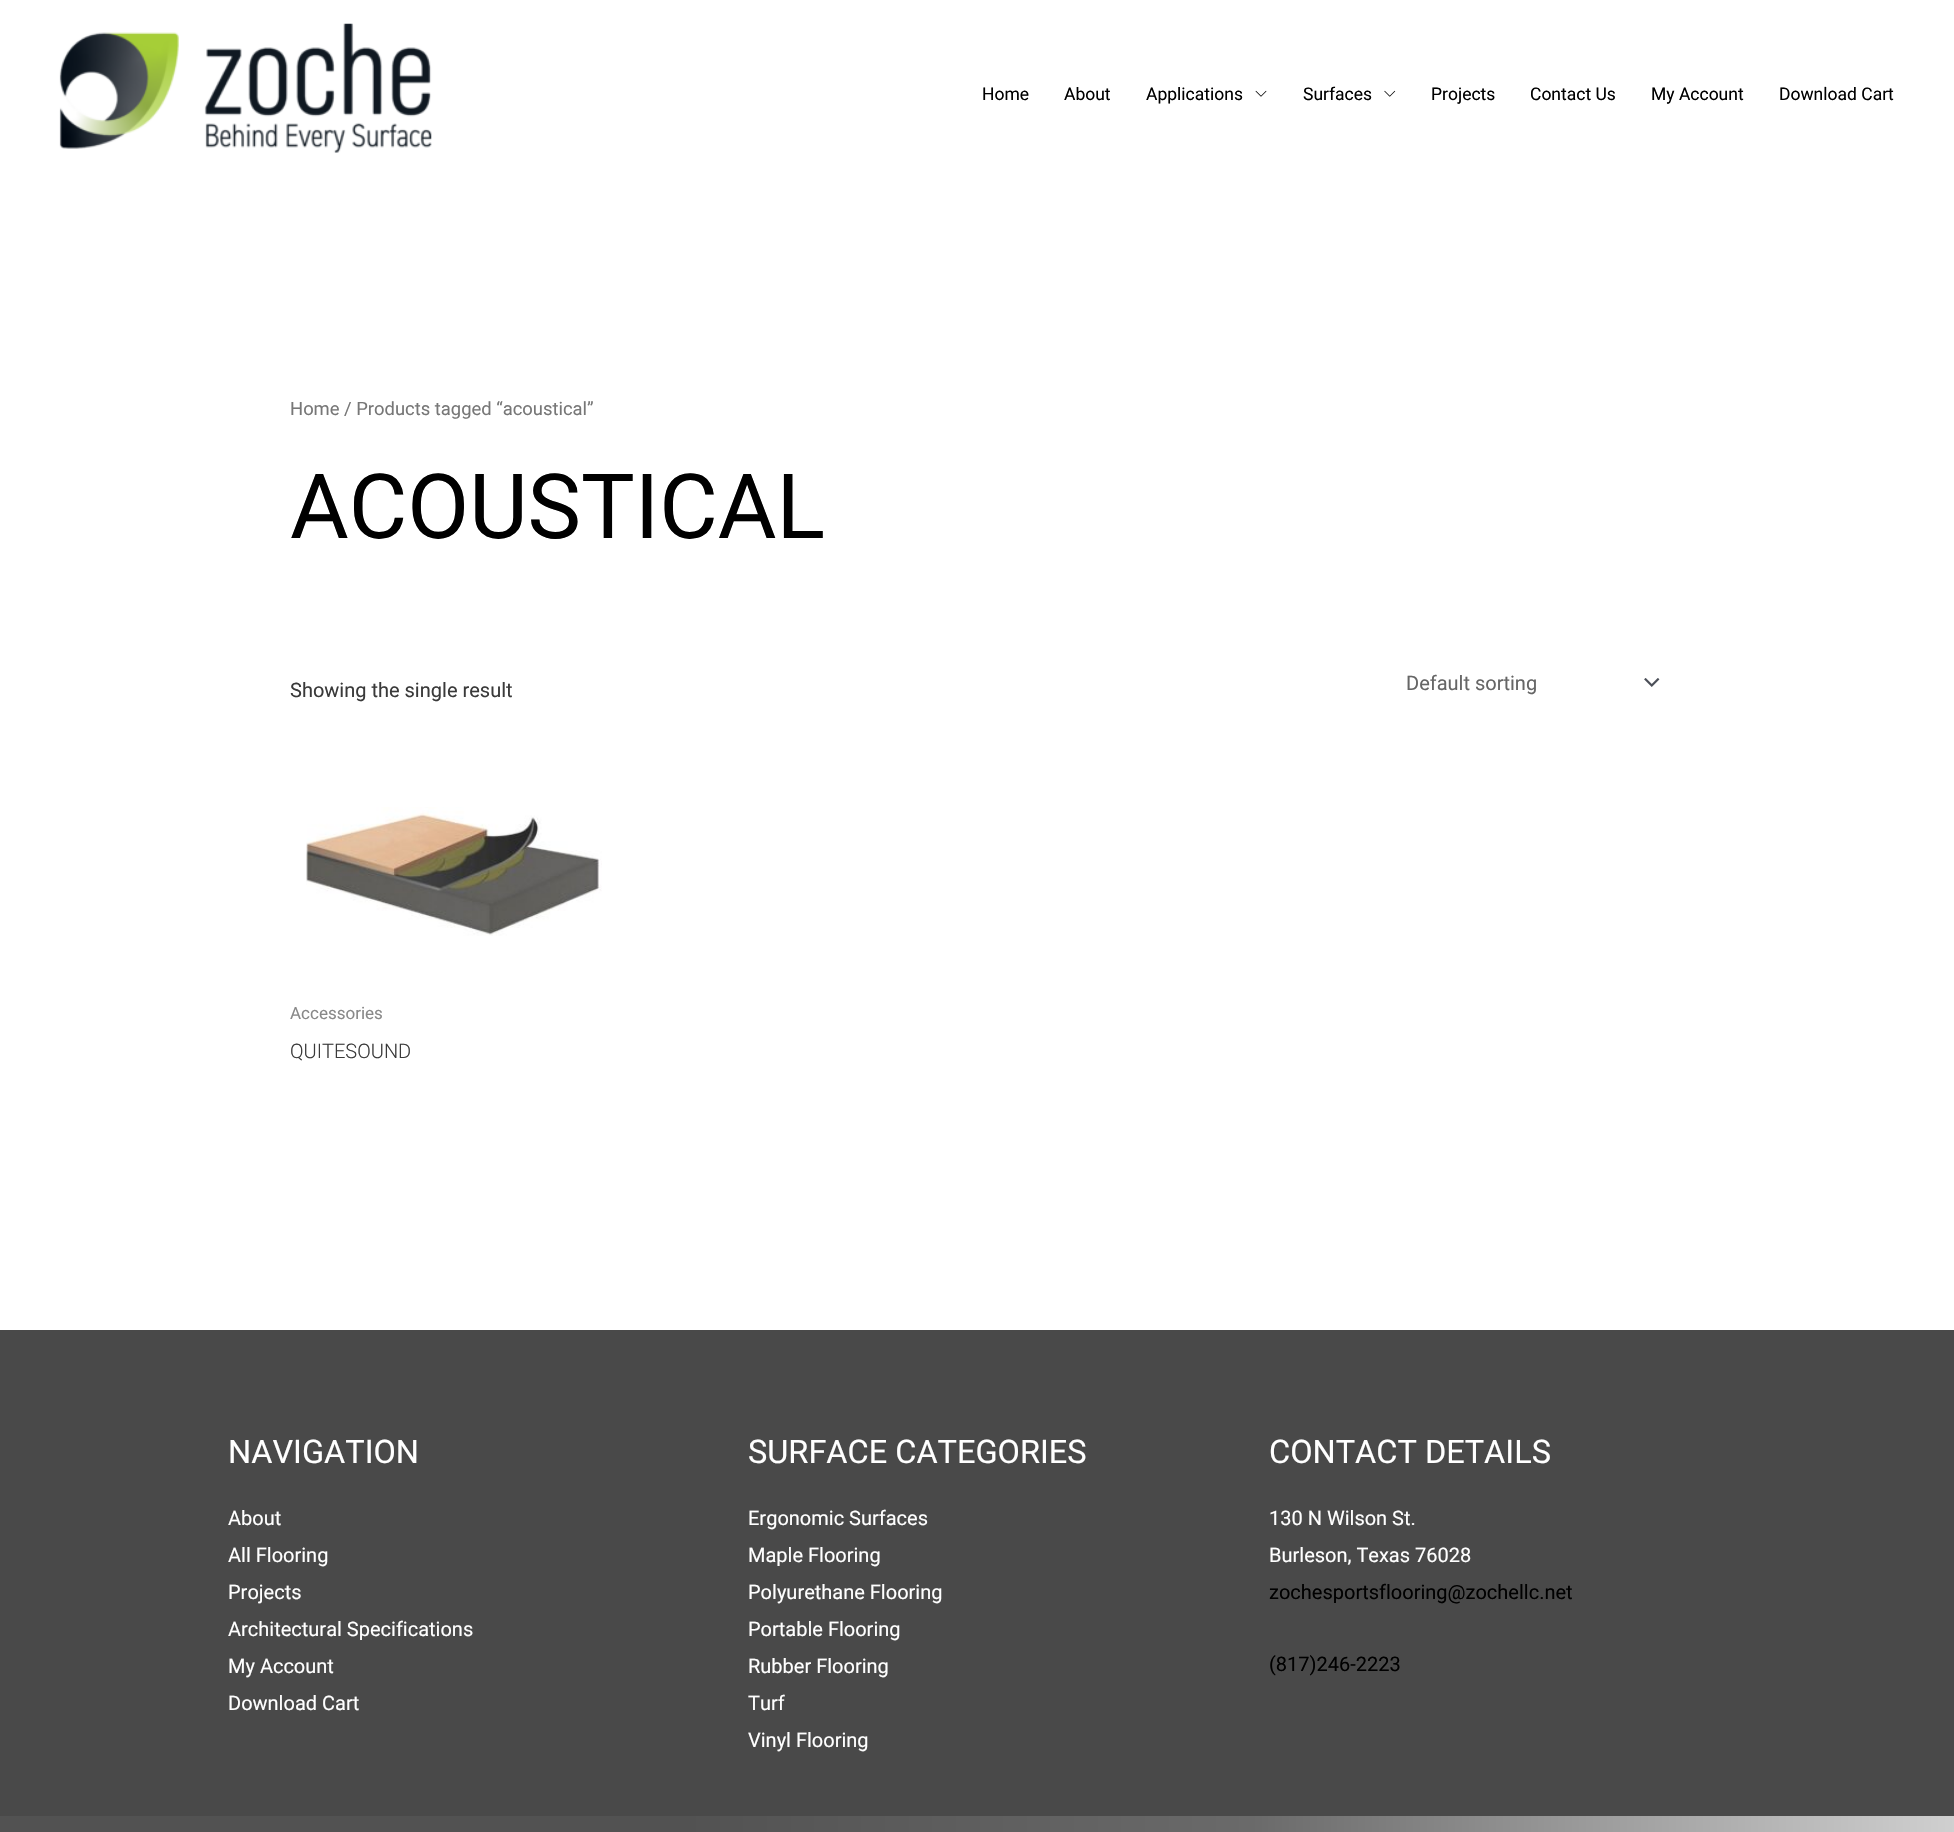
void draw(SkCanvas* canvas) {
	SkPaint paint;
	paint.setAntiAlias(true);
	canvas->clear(0xffffffff);
	canvas->drawImageRect(SkImages::DeferredFromEncodedData(SkData::MakeFromFileName("img1.png")), SkRect::MakeXYWH(59, 23, 373, 130), SkSamplingOptions());
	SkFont f1(fontMgr->matchFamilyStyle("Roboto", SkFontStyle::Normal()), 17.5);
	f1.setSubpixel(true);
	paint.setColor(0xff000000);
	canvas->drawString("Home", 982, 100, f1, paint);
	canvas->drawString("About", 1064, 100, f1, paint);
	canvas->drawString("Applications", 1146, 100, f1, paint);
	canvas->drawImageRect(SkImages::DeferredFromEncodedData(SkData::MakeFromFileName("img2.png")), SkRect::MakeXYWH(1255, 90, 12, 7), SkSamplingOptions());
	canvas->drawString("Surfaces", 1303, 100, f1, paint);
	canvas->drawImageRect(SkImages::DeferredFromEncodedData(SkData::MakeFromFileName("img3.png")), SkRect::MakeXYWH(1384, 90, 12, 7), SkSamplingOptions());
	canvas->drawString("Projects", 1431, 100, f1, paint);
	canvas->drawString("Contact Us", 1530, 100, f1, paint);
	canvas->drawString("My Account", 1651, 100, f1, paint);
	canvas->drawString("Download Cart", 1779, 100, f1, paint);
	SkFont f2(fontMgr->matchFamilyStyle("Roboto", SkFontStyle::Normal()), 18.4);
	f2.setSubpixel(true);
	paint.setColor(0xff777777);
	canvas->drawString("Home / Products tagged “acoustical”", 290, 415, f2, paint);
	SkFont f3(fontMgr->matchFamilyStyle("Roboto", SkFontStyle::Normal()), 90);
	f3.setSubpixel(true);
	paint.setColor(0xff000000);
	canvas->drawString("ACOUSTICAL", 290, 538, f3, paint);
	SkFont f4(fontMgr->matchFamilyStyle("Roboto", SkFontStyle::Normal()), 20);
	f4.setSubpixel(true);
	paint.setColor(0xff3a3a3a);
	canvas->drawString("Showing the single result", 290, 697, f4, paint);
	canvas->drawImageRect(SkImages::DeferredFromEncodedData(SkData::MakeFromFileName("img4.png")), SkRect::MakeXYWH(1644, 678, 16, 9), SkSamplingOptions());
	paint.setColor(0xff666666);
	canvas->drawString("Default sorting", 1406, 690, f4, paint);
	canvas->drawImageRect(SkImages::DeferredFromEncodedData(SkData::MakeFromFileName("img5.png")), SkRect::MakeXYWH(306, 807, 296, 129), SkSamplingOptions());
	SkFont f5(fontMgr->matchFamilyStyle("Roboto", SkFontStyle::Normal()), 17);
	f5.setSubpixel(true);
	paint.setColor(0xff898989);
	canvas->drawString("Accessories", 290, 1019, f5, paint);
	SkFont f6(fontMgr->matchFamilyStyle("Roboto", SkFontStyle(300, SkFontStyle::kNormal_Width, SkFontStyle::kUpright_Slant)), 20);
	f6.setSubpixel(true);
	paint.setColor(0xff3a3a3a);
	canvas->drawString("QUITESOUND", 290, 1058, f6, paint);
	paint.setColor(0xff494949);
	canvas->drawRect(SkRect::MakeXYWH(0, 1330, 1954, 486), paint);
	SkFont f7(fontMgr->matchFamilyStyle("Roboto", SkFontStyle::Normal()), 32.5);
	f7.setSubpixel(true);
	paint.setColor(0xffffffff);
	canvas->drawString("NAVIGATION", 228, 1463, f7, paint);
	canvas->drawString("About", 228, 1525, f4, paint);
	canvas->drawString("All Flooring", 228, 1562, f4, paint);
	canvas->drawString("Projects", 228, 1599, f4, paint);
	canvas->drawString("Architectural Specifications", 228, 1636, f4, paint);
	canvas->drawString("My Account", 228, 1673, f4, paint);
	canvas->drawString("Download Cart", 228, 1710, f4, paint);
	canvas->drawString("SURFACE CATEGORIES", 748, 1463, f7, paint);
	canvas->drawString("Ergonomic Surfaces", 748, 1525, f4, paint);
	canvas->drawString("Maple Flooring", 748, 1562, f4, paint);
	canvas->drawString("Polyurethane Flooring", 748, 1599, f4, paint);
	canvas->drawString("Portable Flooring", 748, 1636, f4, paint);
	canvas->drawString("Rubber Flooring", 748, 1673, f4, paint);
	canvas->drawString("Turf", 748, 1710, f4, paint);
	canvas->drawString("Vinyl Flooring", 748, 1747, f4, paint);
	canvas->drawString("CONTACT DETAILS", 1269, 1463, f7, paint);
	canvas->drawString("130 N Wilson St.", 1269, 1525, f4, paint);
	canvas->drawString("Burleson, Texas 76028", 1269, 1562, f4, paint);
	paint.setColor(0xff000000);
	canvas->drawString("zochesportsflooring@zochellc.net", 1269, 1599, f4, paint);
	canvas->drawString("(817)246-2223", 1269, 1671, f4, paint);
	{
		const SkColor colors[] = {0xff525252, 0xff6a6a6a, 0xffd0d0d0};
		const float stops[] = {0.35, 0.64, 1};
		const SkPoint ends[] = {{0, 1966}, {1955, 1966}};
		paint.setShader(SkGradientShader::MakeLinear(ends, colors, stops, 3, SkTileMode::kClamp));
		paint.setAlpha(255);
	}
	canvas->drawRect(SkRect::MakeXYWH(0, 1816, 1954, 16), paint);
}
